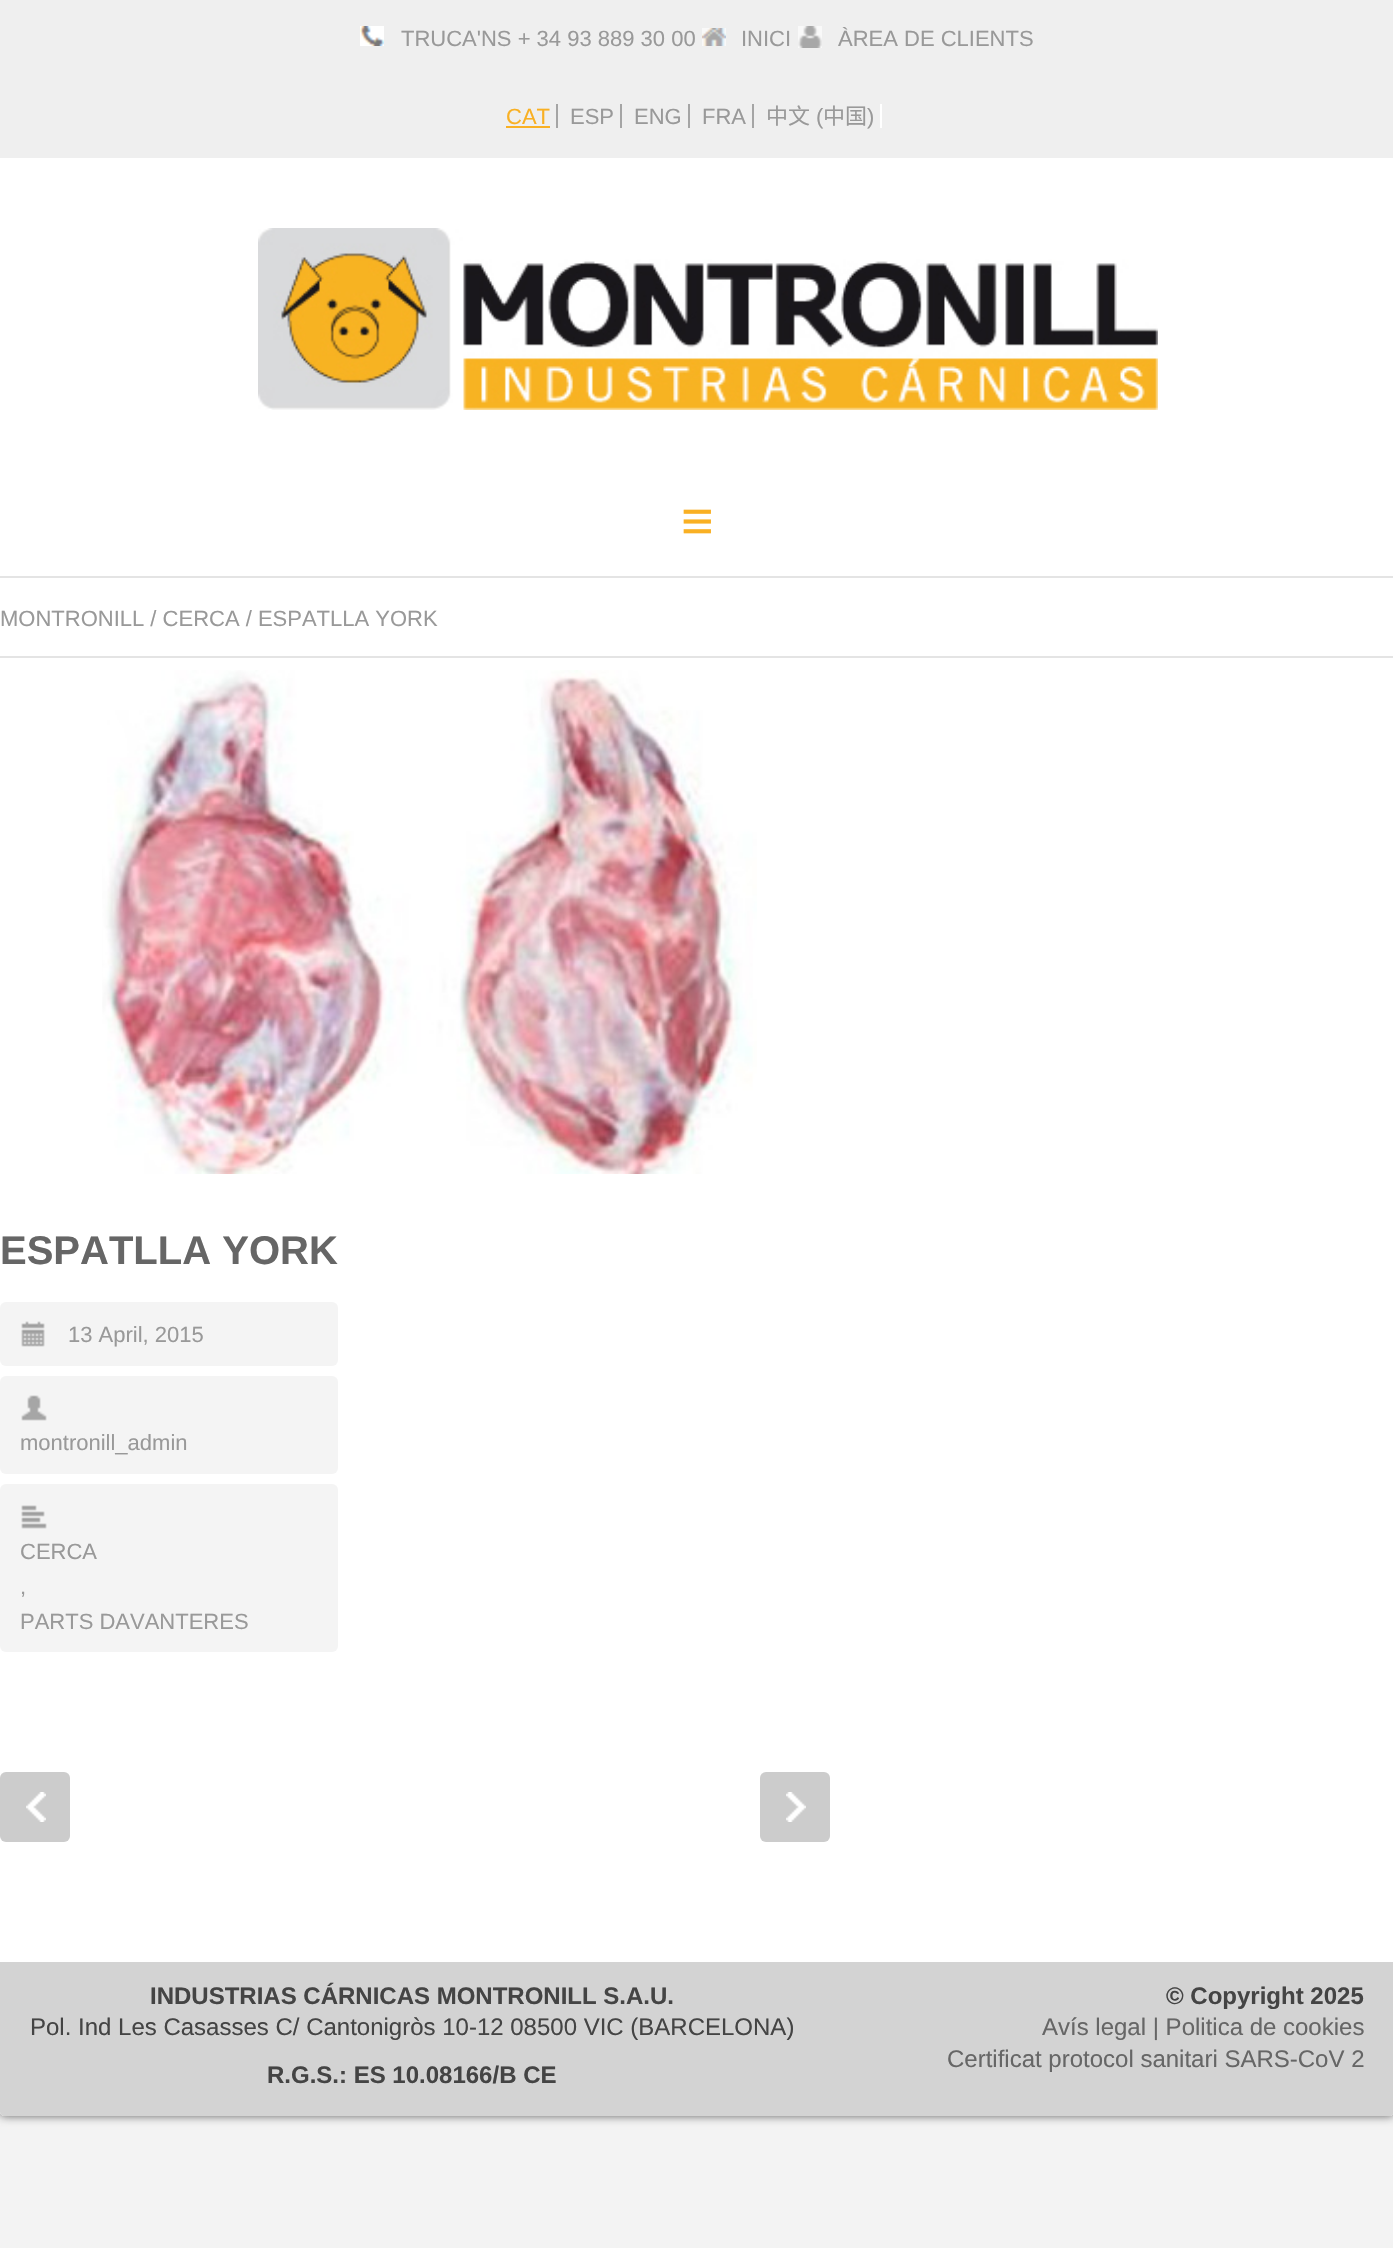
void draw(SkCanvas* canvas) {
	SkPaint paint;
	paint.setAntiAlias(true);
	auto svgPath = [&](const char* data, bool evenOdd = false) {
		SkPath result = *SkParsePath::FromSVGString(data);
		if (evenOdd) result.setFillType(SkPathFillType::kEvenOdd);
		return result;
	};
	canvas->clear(0xffffffff);
	canvas->drawImageRect(SkImages::DeferredFromEncodedData(SkData::MakeFromFileName("img1.png")), SkRect::MakeXYWH(0, 2112, 1393, 136), SkSamplingOptions());
	paint.setColor(0x99000000);
	paint.setMaskFilter(SkMaskFilter::MakeBlur(kNormal_SkBlurStyle, 5));
	canvas->drawRoundRect(SkRect::MakeXYWH(0, 0, 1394, 2116), 4, 4, paint);
	paint.setMaskFilter(nullptr);
	paint.setColor(0xffffffff);
	canvas->drawPath(svgPath("M0 0H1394V2112C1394 2114 1392 2116 1390 2116H4C2 2116 0 2114 0 2112Z"), paint);
	paint.setColor(0xffefefef);
	canvas->drawRect(SkRect::MakeXYWH(0, 0, 1393, 158), paint);
	canvas->drawImageRect(SkImages::DeferredFromEncodedData(SkData::MakeFromFileName("img2.png")), SkRect::MakeXYWH(360, 26, 24, 20), SkSamplingOptions());
	SkFont f1(fontMgr->matchFamilyStyle("Liberation Sans", SkFontStyle::Normal()), 22);
	f1.setSubpixel(true);
	paint.setColor(0xff999999);
	canvas->drawString("TRUCA'NS + 34 93 889 30 00", 401, 46, f1, paint);
	canvas->drawImageRect(SkImages::DeferredFromEncodedData(SkData::MakeFromFileName("img3.png")), SkRect::MakeXYWH(702, 28, 24, 18), SkSamplingOptions());
	canvas->drawString("INICI", 741, 46, f1, paint);
	canvas->drawImageRect(SkImages::DeferredFromEncodedData(SkData::MakeFromFileName("img4.png")), SkRect::MakeXYWH(798, 26, 24, 22), SkSamplingOptions());
	canvas->drawString("ÀREA DE CLIENTS", 838, 46, f1, paint);
	paint.setColor(0xfff9b023);
	canvas->drawString("CAT", 506, 124, f1, paint);
	paint.setColor(0xffa5a5a5);
	canvas->drawRect(SkRect::MakeXYWH(556, 104, 2, 24), paint);
	paint.setColor(0xfff9b023);
	canvas->drawRect(SkRect::MakeXYWH(506, 126, 44, 2), paint);
	paint.setColor(0xff999999);
	canvas->drawString("ESP", 570, 124, f1, paint);
	paint.setColor(0xffa5a5a5);
	canvas->drawRect(SkRect::MakeXYWH(620, 104, 2, 24), paint);
	paint.setColor(0xff999999);
	canvas->drawString("ENG", 634, 124, f1, paint);
	paint.setColor(0xffa5a5a5);
	canvas->drawRect(SkRect::MakeXYWH(688, 104, 2, 24), paint);
	paint.setColor(0xff999999);
	canvas->drawString("FRA", 702, 124, f1, paint);
	paint.setColor(0xffa5a5a5);
	canvas->drawRect(SkRect::MakeXYWH(752, 104, 2, 24), paint);
	SkFont f2(fontMgr->matchFamilyStyle("Noto Sans CJK SC", SkFontStyle::Normal()), 22);
	f2.setSubpixel(true);
	paint.setColor(0xff999999);
	canvas->drawString("中文", 766, 124, f2, paint);
	canvas->drawString("(", 816, 124, f1, paint);
	canvas->drawString("中国", 823, 124, f2, paint);
	canvas->drawString(")", 867, 124, f1, paint);
	paint.setColor(0xffffffff);
	canvas->drawRect(SkRect::MakeXYWH(880, 104, 2, 24), paint);
	canvas->drawImageRect(SkImages::DeferredFromEncodedData(SkData::MakeFromFileName("img5.png")), SkRect::MakeXYWH(258, 228, 900, 182), SkSamplingOptions());
	SkFont f3(fontMgr->matchFamilyStyle("Liberation Sans", SkFontStyle::Normal()), 56);
	f3.setSubpixel(true);
	paint.setColor(0xfff9b023);
	canvas->drawString("≡", 681, 540, f3, paint);
	paint.setColor(0xffe4e4e4);
	canvas->drawRect(SkRect::MakeXYWH(0, 576, 1393, 2), paint);
	canvas->drawRect(SkRect::MakeXYWH(0, 656, 1393, 2), paint);
	paint.setColor(0xff999999);
	canvas->drawString("MONTRONILL / CERCA / ESPATLLA YORK", 0, 626, f1, paint);
	canvas->drawImageRect(SkImages::DeferredFromEncodedData(SkData::MakeFromFileName("img6.png")), SkRect::MakeXYWH(102, 670, 655, 504), SkSamplingOptions());
	SkFont f4(fontMgr->matchFamilyStyle("Liberation Sans", SkFontStyle::Bold()), 40);
	f4.setSubpixel(true);
	paint.setColor(0xff666666);
	canvas->drawString("ESPATLLA YORK", 0, 1264, f4, paint);
	paint.setColor(0xfff4f4f4);
	canvas->drawRoundRect(SkRect::MakeXYWH(0, 1302, 338, 64), 6, 6, paint);
	canvas->drawImageRect(SkImages::DeferredFromEncodedData(SkData::MakeFromFileName("img7.png")), SkRect::MakeXYWH(21, 1321, 24, 26), SkSamplingOptions());
	paint.setColor(0xff999999);
	canvas->drawString("13 April, 2015", 68, 1342, f1, paint);
	paint.setColor(0xfff4f4f4);
	canvas->drawRoundRect(SkRect::MakeXYWH(0, 1376, 338, 98), 6, 6, paint);
	canvas->drawImageRect(SkImages::DeferredFromEncodedData(SkData::MakeFromFileName("img8.png")), SkRect::MakeXYWH(21, 1395, 26, 26), SkSamplingOptions());
	paint.setColor(0xff999999);
	canvas->drawString("montronill_admin", 20, 1450, f1, paint);
	paint.setColor(0xfff4f4f4);
	canvas->drawRoundRect(SkRect::MakeXYWH(0, 1484, 338, 168), 6, 6, paint);
	canvas->drawImageRect(SkImages::DeferredFromEncodedData(SkData::MakeFromFileName("img9.png")), SkRect::MakeXYWH(21, 1505, 26, 24), SkSamplingOptions());
	paint.setColor(0xff999999);
	canvas->drawString("CERCA", 20, 1559, f1, paint);
	canvas->drawString(",", 20, 1594, f1, paint);
	canvas->drawString("PARTS DAVANTERES", 20, 1629, f1, paint);
	paint.setColor(0xffcccccc);
	canvas->drawRoundRect(SkRect::MakeXYWH(0, 1772, 70, 70), 6, 6, paint);
	canvas->drawImageRect(SkImages::DeferredFromEncodedData(SkData::MakeFromFileName("img10.png")), SkRect::MakeXYWH(26, 1792, 20, 30), SkSamplingOptions());
	canvas->drawRoundRect(SkRect::MakeXYWH(760, 1772, 70, 70), 6, 6, paint);
	canvas->drawImageRect(SkImages::DeferredFromEncodedData(SkData::MakeFromFileName("img11.png")), SkRect::MakeXYWH(786, 1792, 20, 30), SkSamplingOptions());
	paint.setColor(0xffd3d3d3);
	canvas->drawPath(svgPath("M0 1962H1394V2112C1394 2114 1392 2116 1390 2116H4C2 2116 0 2114 0 2112Z"), paint);
	SkFont f5(fontMgr->matchFamilyStyle("Liberation Sans", SkFontStyle::Bold()), 24);
	f5.setSubpixel(true);
	paint.setColor(0xff444444);
	canvas->drawString("INDUSTRIAS CÁRNICAS MONTRONILL S.A.U.", 150, 2004, f5, paint);
	SkFont f6(fontMgr->matchFamilyStyle("Liberation Sans", SkFontStyle::Normal()), 24);
	f6.setSubpixel(true);
	canvas->drawString("Pol. Ind Les Casasses C/ Cantonigròs 10-12 08500 VIC (BARCELONA)", 30, 2035, f6, paint);
	canvas->drawString("R.G.S.: ES 10.08166/B CE", 267, 2083, f5, paint);
	canvas->drawString("© Copyright 2025", 1166, 2004, f5, paint);
	paint.setColor(0xff666666);
	canvas->drawString("Avís legal | Politica de cookies", 1042, 2035, f6, paint);
	canvas->drawString("Certificat protocol sanitari SARS-CoV 2", 947, 2067, f6, paint);
}
